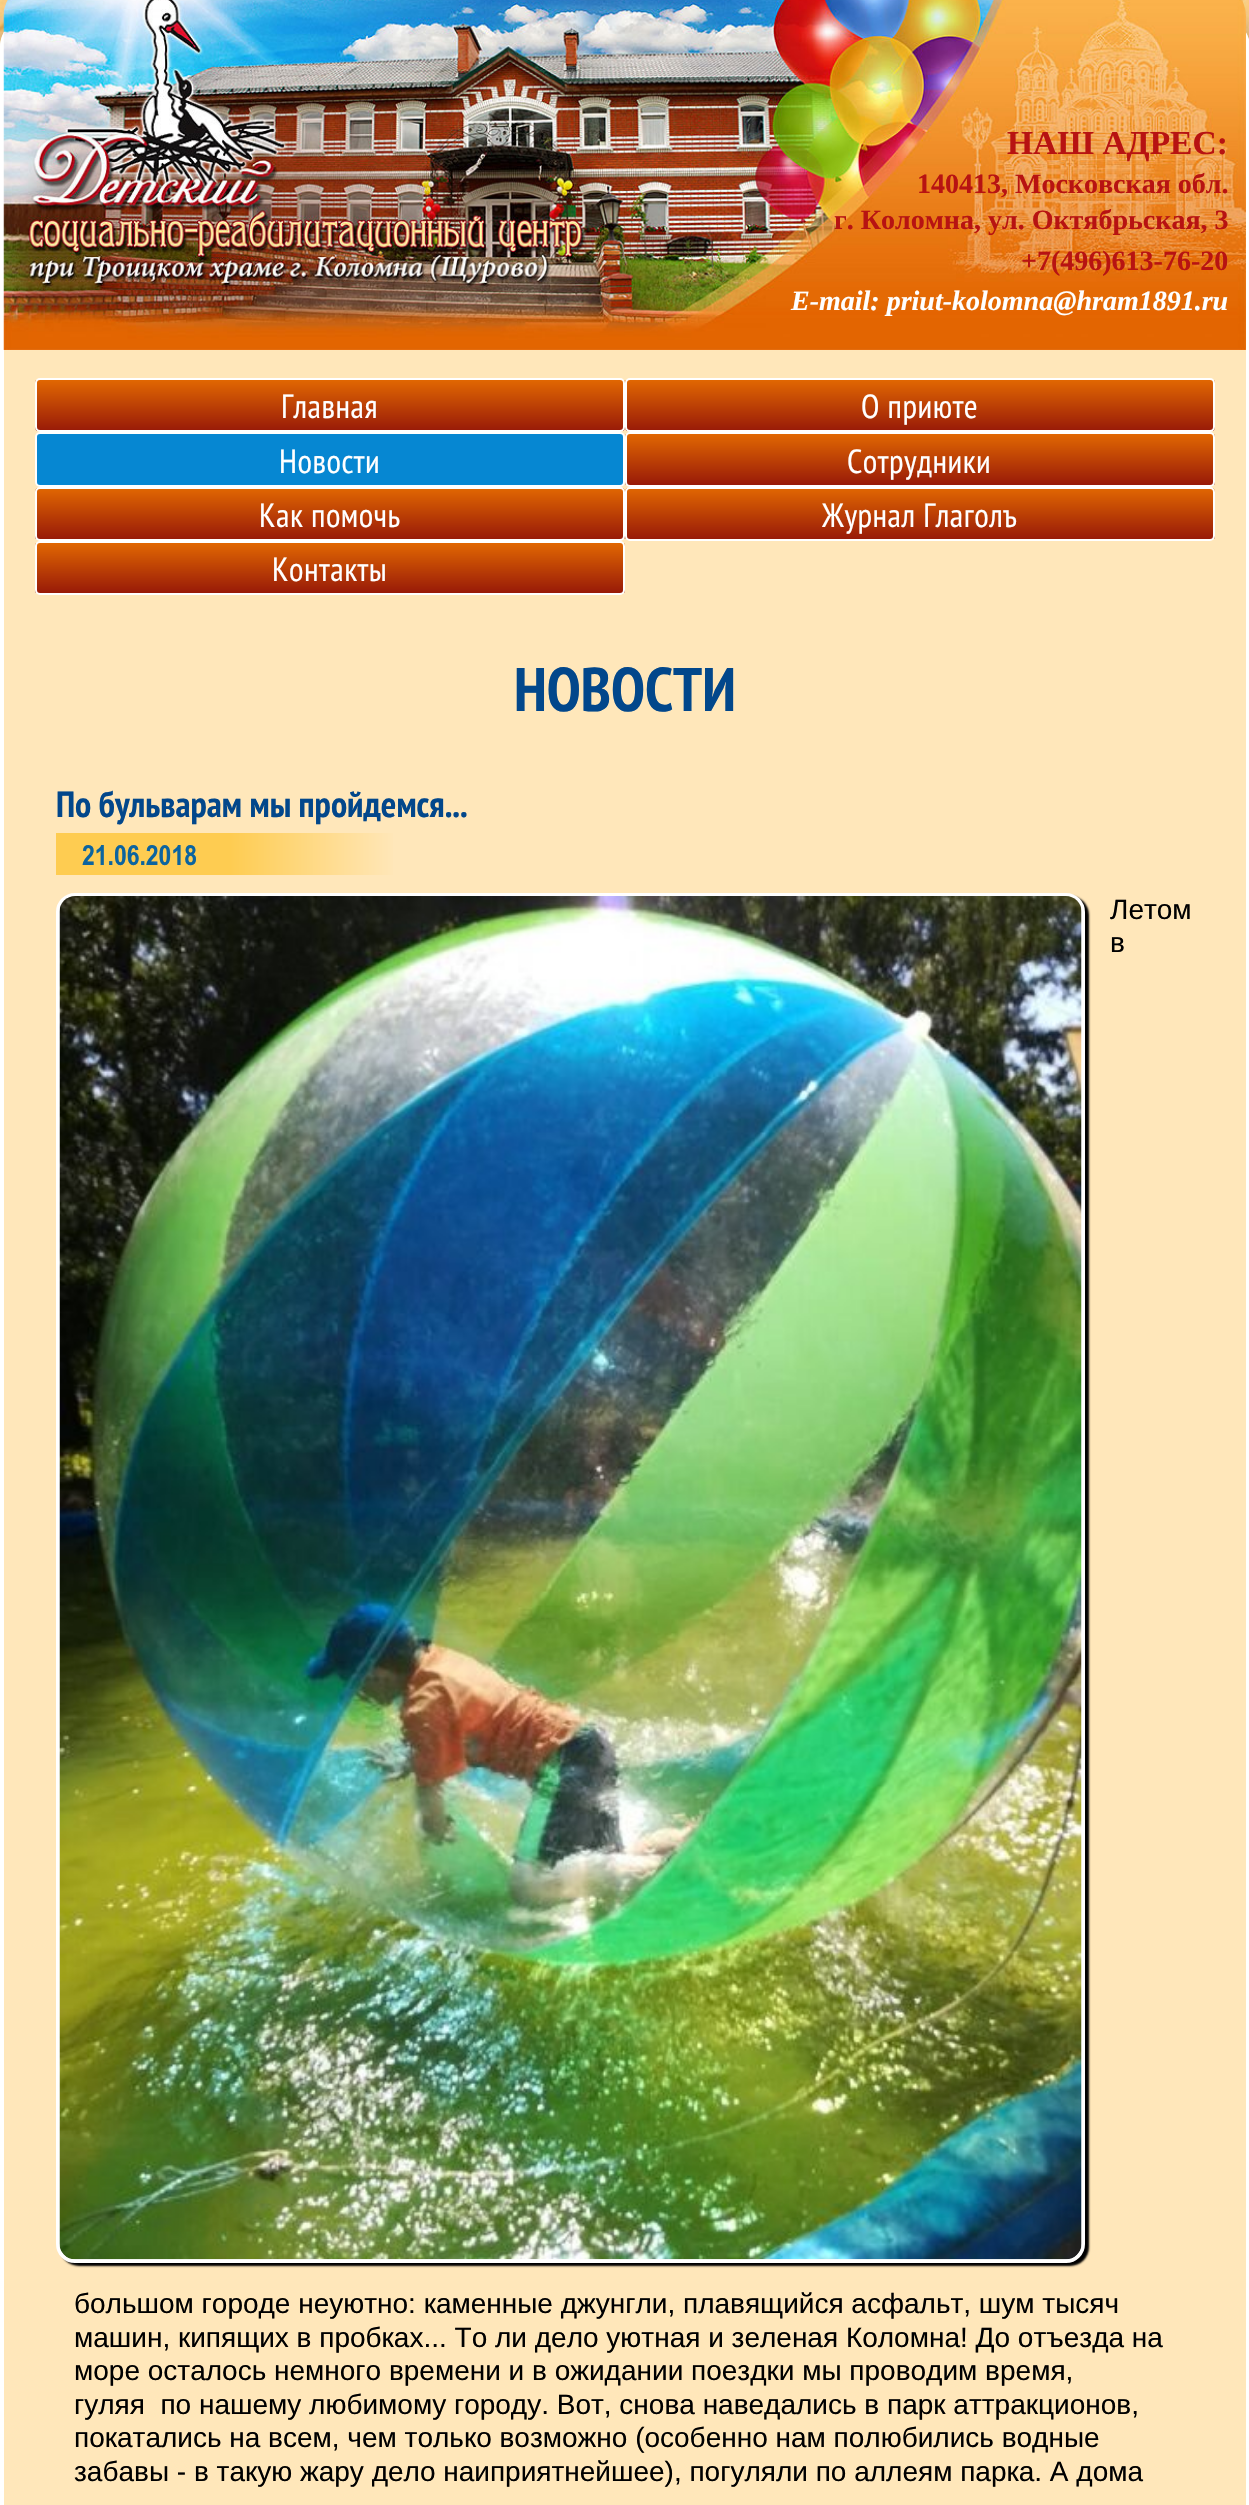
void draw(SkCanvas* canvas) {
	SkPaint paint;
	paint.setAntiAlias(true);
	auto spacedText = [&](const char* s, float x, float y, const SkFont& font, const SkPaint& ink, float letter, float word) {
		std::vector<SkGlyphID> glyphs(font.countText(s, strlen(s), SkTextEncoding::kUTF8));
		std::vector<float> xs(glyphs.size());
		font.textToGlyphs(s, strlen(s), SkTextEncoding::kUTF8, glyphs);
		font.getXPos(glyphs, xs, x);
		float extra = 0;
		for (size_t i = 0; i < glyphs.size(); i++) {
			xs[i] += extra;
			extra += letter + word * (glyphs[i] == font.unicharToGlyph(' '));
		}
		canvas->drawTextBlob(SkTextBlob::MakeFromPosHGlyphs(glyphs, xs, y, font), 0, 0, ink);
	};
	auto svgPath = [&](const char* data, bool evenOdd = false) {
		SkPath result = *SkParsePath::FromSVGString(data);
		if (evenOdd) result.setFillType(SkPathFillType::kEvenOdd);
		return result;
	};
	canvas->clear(0xffffffff);
	canvas->drawImageRect(SkImages::DeferredFromEncodedData(SkData::MakeFromFileName("img1.png")), SkRect::MakeXYWH(0, 0, 1249, 47), SkSamplingOptions());
	paint.setColor(0x80585858);
	paint.setMaskFilter(SkMaskFilter::MakeBlur(kNormal_SkBlurStyle, 13));
	canvas->drawRoundRect(SkRect::MakeXYWH(2, 18, 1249, 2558), 32, 32, paint);
	paint.setMaskFilter(nullptr);
	paint.setColor(0xffffe7ba);
	canvas->drawRoundRect(SkRect::MakeXYWH(0, 16, 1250, 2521), 32, 32, paint);
	paint.setColor(0xffffffff);
	canvas->drawPath(svgPath("M32 16H1218C1235 16 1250 30 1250 47V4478C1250 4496 1235 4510 1218 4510H32C14 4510 0 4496 0 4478V47C0 30 14 16 32 16ZM32 19H1218C1233 19 1246 32 1246 47V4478C1246 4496 1233 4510 1218 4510H32C16 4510 4 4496 4 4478V47C4 32 16 19 32 19Z", true), paint);
	canvas->drawImageRect(SkImages::DeferredFromEncodedData(SkData::MakeFromFileName("img2.png")), SkRect::MakeXYWH(3, 0, 1243, 350), SkSamplingOptions());
	SkFont f1(fontMgr->matchFamilyStyle("Liberation Serif", SkFontStyle::Bold()), 33.5);
	f1.setSubpixel(true);
	paint.setColor(0xffb71312);
	canvas->drawString("НАШ АДРЕС:", 1007, 154, f1, paint);
	SkFont f2(fontMgr->matchFamilyStyle("Liberation Serif", SkFontStyle::Bold()), 28);
	f2.setSubpixel(true);
	canvas->drawString("140413, Московская обл.", 917, 193, f2, paint);
	canvas->drawString("г. Коломна, ул. Октябрьская, 3", 834, 229, f2, paint);
	canvas->drawString("+7(496)613-76-20", 1021, 270, f2, paint);
	SkFont f3(fontMgr->matchFamilyStyle("Liberation Serif", SkFontStyle::BoldItalic()), 28);
	f3.setSubpixel(true);
	paint.setColor(0xffffffff);
	canvas->drawString("E-mail: priut-kolomna@hram1891.ru", 791, 310, f3, paint);
	canvas->save();
	canvas->clipPath(svgPath("M40 378H620C623 378 625 380 625 383V427C625 430 623 432 620 432H40C37 432 35 430 35 427V383C35 380 37 378 40 378Z"), true);
	{
		const SkColor colors[] = {0xffe16702, 0xff981a08};
		const float stops[] = {0, 1};
		const SkPoint ends[] = {{330, 380}, {330, 431}};
		paint.setShader(SkGradientShader::MakeLinear(ends, colors, stops, 2, SkTileMode::kClamp));
		paint.setAlpha(255);
	}
	canvas->drawRect(SkRect::MakeXYWH(35, 380, 590, 51), paint);
	canvas->restore();
	paint.setStroke(true);
	paint.setStrokeWidth(2);
	paint.setShader(nullptr);
	paint.setColor(0xffffffff);
	canvas->drawRoundRect(SkRect::MakeXYWH(36, 379, 588, 52), 4, 4, paint);
	SkFont f4(fontMgr->matchFamilyStyle("PT Sans Narrow", SkFontStyle::Normal()), 33.5);
	f4.setSubpixel(true);
	paint.setStroke(false);
	spacedText("Главная", 281, 418, f4, paint, 0.5, 0);
	canvas->save();
	canvas->clipPath(svgPath("M630 378H1210C1213 378 1215 380 1215 383V427C1215 430 1213 432 1210 432H630C627 432 625 430 625 427V383C625 380 627 378 630 378Z"), true);
	{
		const SkColor colors[] = {0xffe16702, 0xff981a08};
		const float stops[] = {0, 1};
		const SkPoint ends[] = {{920, 380}, {920, 431}};
		paint.setShader(SkGradientShader::MakeLinear(ends, colors, stops, 2, SkTileMode::kClamp));
		paint.setAlpha(255);
	}
	canvas->drawRect(SkRect::MakeXYWH(625, 380, 590, 51), paint);
	canvas->restore();
	paint.setStroke(true);
	paint.setShader(nullptr);
	paint.setColor(0xffffffff);
	canvas->drawRoundRect(SkRect::MakeXYWH(626, 379, 588, 52), 4, 4, paint);
	paint.setStroke(false);
	spacedText("О приюте", 861, 418, f4, paint, 0.5, 0);
	paint.setColor(0xff0687d2);
	canvas->drawRoundRect(SkRect::MakeXYWH(36, 433, 588, 53), 4, 4, paint);
	paint.setStroke(true);
	paint.setColor(0xffffffff);
	canvas->drawRoundRect(SkRect::MakeXYWH(36, 433, 588, 53), 4, 4, paint);
	paint.setStroke(false);
	spacedText("Новости", 279, 473, f4, paint, 0.5, 0);
	canvas->save();
	canvas->clipPath(svgPath("M630 432H1210C1213 432 1215 434 1215 437V482C1215 485 1213 487 1210 487H630C627 487 625 485 625 482V437C625 434 627 432 630 432Z"), true);
	{
		const SkColor colors[] = {0xffe16702, 0xff981a08};
		const float stops[] = {0, 1};
		const SkPoint ends[] = {{920, 434}, {920, 485}};
		paint.setShader(SkGradientShader::MakeLinear(ends, colors, stops, 2, SkTileMode::kClamp));
		paint.setAlpha(255);
	}
	canvas->drawRect(SkRect::MakeXYWH(625, 434, 590, 51), paint);
	canvas->restore();
	paint.setStroke(true);
	paint.setShader(nullptr);
	paint.setColor(0xffffffff);
	canvas->drawRoundRect(SkRect::MakeXYWH(626, 433, 588, 53), 4, 4, paint);
	paint.setStroke(false);
	spacedText("Сотрудники", 847, 473, f4, paint, 0.5, 0);
	canvas->save();
	canvas->clipPath(svgPath("M40 487H620C623 487 625 489 625 492V536C625 539 623 541 620 541H40C37 541 35 539 35 536V492C35 489 37 487 40 487Z"), true);
	{
		const SkColor colors[] = {0xffe16702, 0xff981a08};
		const float stops[] = {0, 1};
		const SkPoint ends[] = {{330, 488}, {330, 539}};
		paint.setShader(SkGradientShader::MakeLinear(ends, colors, stops, 2, SkTileMode::kClamp));
		paint.setAlpha(255);
	}
	canvas->drawRect(SkRect::MakeXYWH(35, 488, 590, 51), paint);
	canvas->restore();
	paint.setStroke(true);
	paint.setShader(nullptr);
	paint.setColor(0xffffffff);
	canvas->drawRoundRect(SkRect::MakeXYWH(36, 488, 588, 52), 4, 4, paint);
	paint.setStroke(false);
	spacedText("Как помочь", 259, 527, f4, paint, 0.5, 0);
	canvas->save();
	canvas->clipPath(svgPath("M630 487H1210C1213 487 1215 489 1215 492V536C1215 539 1213 541 1210 541H630C627 541 625 539 625 536V492C625 489 627 487 630 487Z"), true);
	{
		const SkColor colors[] = {0xffe16702, 0xff981a08};
		const float stops[] = {0, 1};
		const SkPoint ends[] = {{920, 488}, {920, 539}};
		paint.setShader(SkGradientShader::MakeLinear(ends, colors, stops, 2, SkTileMode::kClamp));
		paint.setAlpha(255);
	}
	canvas->drawRect(SkRect::MakeXYWH(625, 488, 590, 51), paint);
	canvas->restore();
	paint.setStroke(true);
	paint.setShader(nullptr);
	paint.setColor(0xffffffff);
	canvas->drawRoundRect(SkRect::MakeXYWH(626, 488, 588, 52), 4, 4, paint);
	paint.setStroke(false);
	spacedText("Журнал Глаголъ", 822, 527, f4, paint, 0.5, 0);
	canvas->save();
	canvas->clipPath(svgPath("M40 541H620C623 541 625 543 625 546V590C625 593 623 595 620 595H40C37 595 35 593 35 590V546C35 543 37 541 40 541Z"), true);
	{
		const SkColor colors[] = {0xffe16702, 0xff981a08};
		const float stops[] = {0, 1};
		const SkPoint ends[] = {{330, 543}, {330, 593}};
		paint.setShader(SkGradientShader::MakeLinear(ends, colors, stops, 2, SkTileMode::kClamp));
		paint.setAlpha(255);
	}
	canvas->drawRect(SkRect::MakeXYWH(35, 543, 590, 50), paint);
	canvas->restore();
	paint.setStroke(true);
	paint.setShader(nullptr);
	paint.setColor(0xffffffff);
	canvas->drawRoundRect(SkRect::MakeXYWH(36, 542, 588, 52), 4, 4, paint);
	paint.setStroke(false);
	spacedText("Контакты", 272, 581, f4, paint, 0.5, 0);
	SkFont f5(fontMgr->matchFamilyStyle("PT Sans Narrow", SkFontStyle::Bold()), 61.5);
	f5.setSubpixel(true);
	paint.setColor(0xff02478b);
	canvas->drawString("НОВОСТИ", 514, 711, f5, paint);
	SkFont f6(fontMgr->matchFamilyStyle("PT Sans Narrow", SkFontStyle::Bold()), 36.4);
	f6.setSubpixel(true);
	canvas->drawString("По бульварам мы пройдемся...", 56, 817, f6, paint);
	{
		const SkColor colors[] = {0xfffecc51, 0xfffecc51, 0xffffe7ba};
		const float stops[] = {0, 0.51, 1};
		const SkPoint ends[] = {{56, 854}, {397, 854}};
		paint.setShader(SkGradientShader::MakeLinear(ends, colors, stops, 3, SkTileMode::kClamp));
		paint.setAlpha(255);
	}
	canvas->drawRect(SkRect::MakeXYWH(56, 833, 337, 42), paint);
	SkFont f7(fontMgr->matchFamilyStyle("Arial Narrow", SkFontStyle::Bold()), 28);
	f7.setSubpixel(true);
	paint.setShader(nullptr);
	paint.setColor(0xff0c649f);
	canvas->drawString("21.06.2018", 82, 865, f7, paint);
	paint.setColor(0xff000000);
	paint.setMaskFilter(SkMaskFilter::MakeBlur(kNormal_SkBlurStyle, 1));
	canvas->drawRoundRect(SkRect::MakeXYWH(60, 896, 1029, 1370), 19, 19, paint);
	paint.setMaskFilter(nullptr);
	paint.setStroke(true);
	paint.setStrokeWidth(4);
	paint.setColor(0xffffffff);
	canvas->drawRoundRect(SkRect::MakeXYWH(58, 895, 1025, 1366), 17, 17, paint);
	canvas->drawImageRect(SkImages::DeferredFromEncodedData(SkData::MakeFromFileName("img3.png")), SkRect::MakeXYWH(59, 896, 1023, 1364), SkSamplingOptions());
	SkFont f8(fontMgr->matchFamilyStyle("Liberation Sans", SkFontStyle::Normal()), 28);
	f8.setSubpixel(true);
	paint.setStroke(false);
	paint.setColor(0xff000000);
	canvas->drawString("Летом", 1110, 919, f8, paint);
	canvas->drawString("в", 1110, 952, f8, paint);
	canvas->drawString("большом городе неуютно: каменные джунгли, плавящийся асфальт, шум тысяч", 74, 2313, f8, paint);
	canvas->drawString("машин, кипящих в пробках... То ли дело уютная и зеленая Коломна! До отъезда на", 74, 2347, f8, paint);
	canvas->drawString("море осталось немного времени и в ожидании поездки мы проводим время,", 74, 2380, f8, paint);
	canvas->drawString("гуляя  по нашему любимому городу. Вот, снова наведались в парк аттракционов,", 74, 2414, f8, paint);
	canvas->drawString("покатались на всем, чем только возможно (особенно нам полюбились водные", 74, 2447, f8, paint);
	canvas->drawString("забавы - в такую жару дело наиприятнейшее), погуляли по аллеям парка. А дома", 74, 2481, f8, paint);
}
